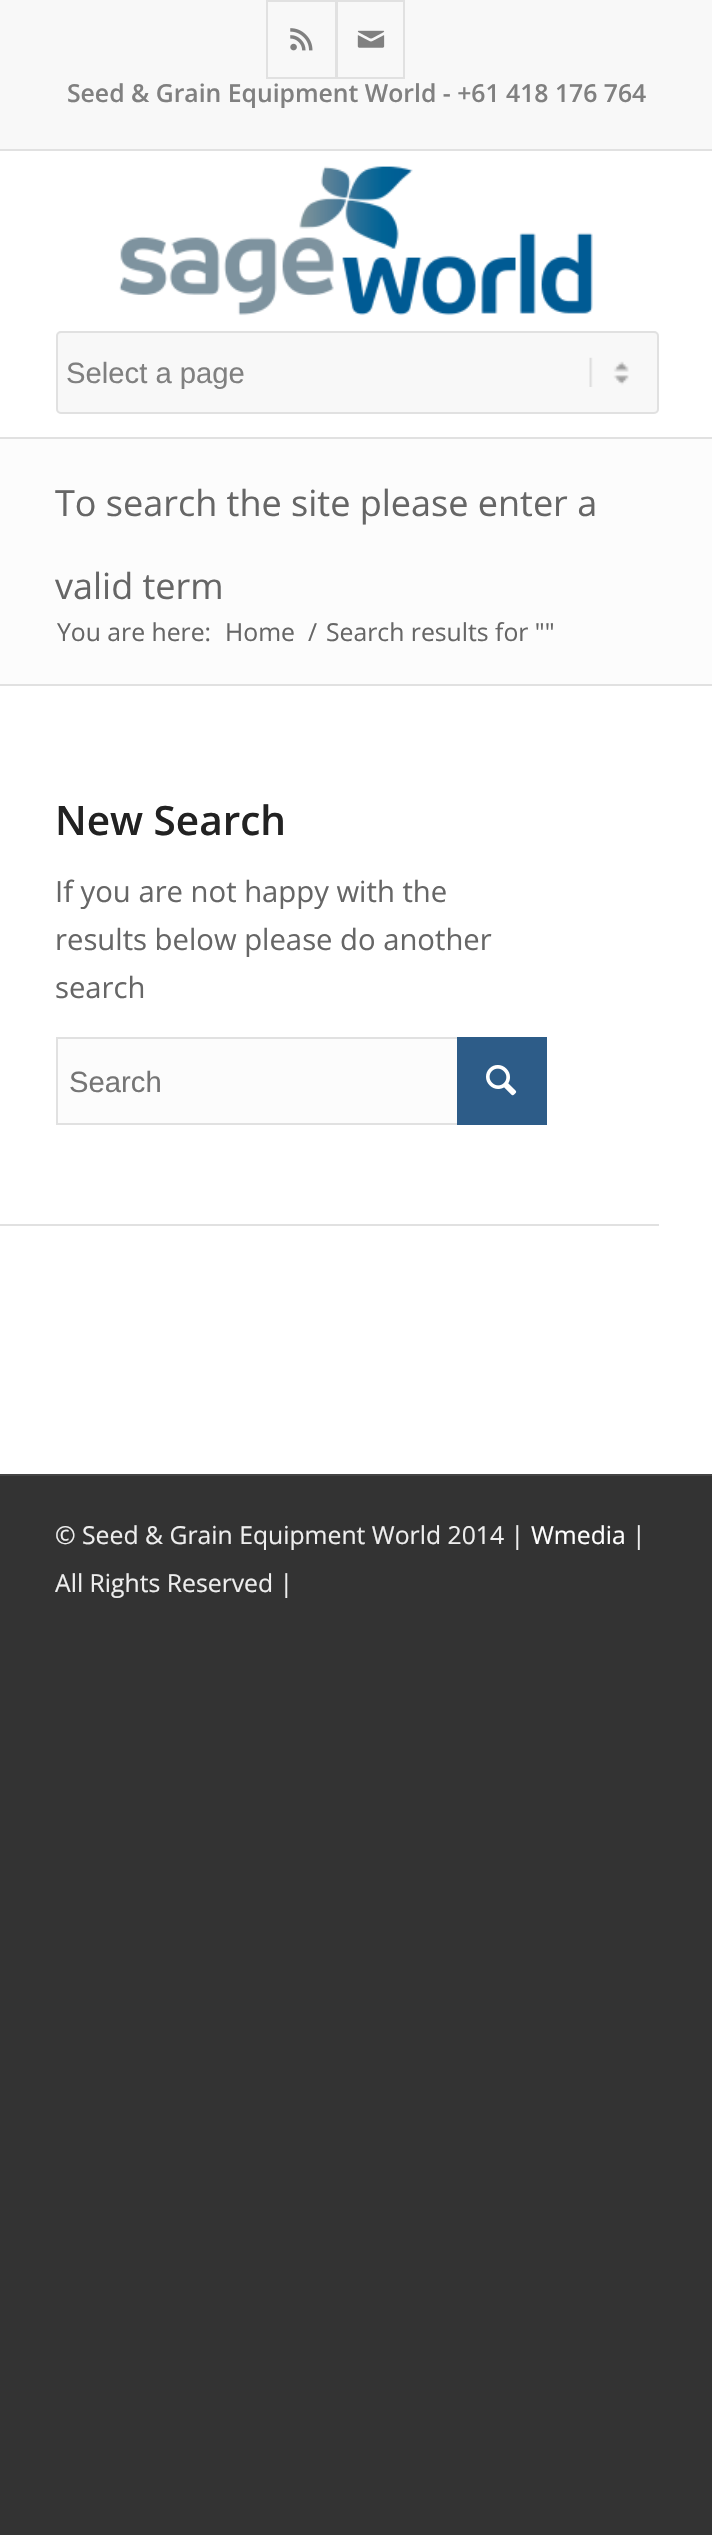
void draw(SkCanvas* canvas) {
	SkPaint paint;
	paint.setAntiAlias(true);
	canvas->clear(0xff333333);
	paint.setColor(0xffffffff);
	canvas->drawRect(SkRect::MakeXYWH(0, 151, 712, 1323), paint);
	paint.setColor(0xfff8f8f8);
	canvas->drawRect(SkRect::MakeXYWH(0, 0, 712, 149), paint);
	paint.setStroke(true);
	paint.setStrokeWidth(2);
	paint.setColor(0xffe1e1e1);
	canvas->drawRect(SkRect::MakeXYWH(267, 1, 70, 77), paint);
	canvas->drawImageRect(SkImages::DeferredFromEncodedData(SkData::MakeFromFileName("img1.png")), SkRect::MakeXYWH(290, 28, 23, 23), SkSamplingOptions());
	paint.setStroke(false);
	canvas->drawRect(SkRect::MakeXYWH(335, 0, 70, 2), paint);
	canvas->drawRect(SkRect::MakeXYWH(335, 77, 70, 2), paint);
	canvas->drawRect(SkRect::MakeXYWH(335, 0, 1, 79), paint);
	canvas->drawRect(SkRect::MakeXYWH(403, 2, 2, 75), paint);
	canvas->drawImageRect(SkImages::DeferredFromEncodedData(SkData::MakeFromFileName("img2.png")), SkRect::MakeXYWH(357, 30, 28, 18), SkSamplingOptions());
	SkFont f1(fontMgr->matchFamilyStyle("Open Sans", SkFontStyle(600, SkFontStyle::kNormal_Width, SkFontStyle::kUpright_Slant)), 24.75);
	f1.setSubpixel(true);
	paint.setColor(0xff808080);
	canvas->drawString("Seed & Grain Equipment World - +61 418 176 764", 67, 102, f1, paint);
	paint.setColor(0xffe1e1e1);
	canvas->drawRect(SkRect::MakeXYWH(0, 149, 712, 2), paint);
	canvas->drawRect(SkRect::MakeXYWH(0, 437, 712, 2), paint);
	canvas->drawImageRect(SkImages::DeferredFromEncodedData(SkData::MakeFromFileName("img3.png")), SkRect::MakeXYWH(119, 166, 474, 150), SkSamplingOptions());
	paint.setColor(0xfff8f8f8);
	canvas->drawRoundRect(SkRect::MakeXYWH(56, 331, 603, 83), 5, 5, paint);
	canvas->drawImageRect(SkImages::DeferredFromEncodedData(SkData::MakeFromFileName("img4.png")), SkRect::MakeXYWH(589, 357, 40, 30), SkSamplingOptions());
	paint.setStroke(true);
	paint.setColor(0xffe1e1e1);
	canvas->drawRoundRect(SkRect::MakeXYWH(57, 332, 601, 81), 4, 4, paint);
	SkFont f2(fontMgr->matchFamilyStyle("Liberation Sans", SkFontStyle::Normal()), 29.25);
	f2.setSubpixel(true);
	paint.setStroke(false);
	paint.setColor(0xff808080);
	canvas->drawString("Select a page", 66, 383, f2, paint);
	paint.setColor(0xfffcfcfc);
	canvas->drawRect(SkRect::MakeXYWH(0, 439, 712, 245), paint);
	SkFont f3(fontMgr->matchFamilyStyle("Open Sans", SkFontStyle::Normal()), 36);
	f3.setSubpixel(true);
	paint.setColor(0xff666666);
	canvas->drawString("To search the site please enter a", 55, 516, f3, paint);
	canvas->drawString("valid term", 55, 599, f3, paint);
	SkFont f4(fontMgr->matchFamilyStyle("Open Sans", SkFontStyle::Normal()), 24.75);
	f4.setSubpixel(true);
	canvas->drawString("You are here:", 57, 641, f4, paint);
	canvas->drawString("Home", 225, 641, f4, paint);
	canvas->drawString("/", 308, 641, f4, paint);
	canvas->drawString("Search results for \"\"", 326, 641, f4, paint);
	paint.setColor(0xffe1e1e1);
	canvas->drawRect(SkRect::MakeXYWH(0, 684, 712, 2), paint);
	SkFont f5(fontMgr->matchFamilyStyle("Open Sans", SkFontStyle(600, SkFontStyle::kNormal_Width, SkFontStyle::kUpright_Slant)), 40.5);
	f5.setSubpixel(true);
	paint.setColor(0xff222222);
	canvas->drawString("New Search", 55, 835, f5, paint);
	SkFont f6(fontMgr->matchFamilyStyle("Open Sans", SkFontStyle::Normal()), 29.25);
	f6.setSubpixel(true);
	paint.setColor(0xff666666);
	canvas->drawString("If you are not happy with the", 55, 902, f6, paint);
	canvas->drawString("results below please do another", 55, 950, f6, paint);
	canvas->drawString("search", 55, 998, f6, paint);
	paint.setColor(0xfffcfcfc);
	canvas->drawRect(SkRect::MakeXYWH(58, 1039, 399, 84), paint);
	paint.setStroke(true);
	paint.setColor(0xffe1e1e1);
	canvas->drawRect(SkRect::MakeXYWH(57, 1038, 489, 86), paint);
	paint.setStroke(false);
	paint.setColor(0xff757575);
	canvas->drawString("Search", 69, 1092, f2, paint);
	paint.setColor(0xff2d5c88);
	canvas->drawRect(SkRect::MakeXYWH(457, 1037, 90, 88), paint);
	canvas->drawImageRect(SkImages::DeferredFromEncodedData(SkData::MakeFromFileName("img5.png")), SkRect::MakeXYWH(486, 1065, 31, 31), SkSamplingOptions());
	paint.setColor(0xffe1e1e1);
	canvas->drawRect(SkRect::MakeXYWH(0, 1224, 659, 2), paint);
	paint.setColor(0xff444444);
	canvas->drawRect(SkRect::MakeXYWH(0, 1474, 712, 2), paint);
	paint.setColor(0xffeeeeee);
	canvas->drawString("© Seed & Grain Equipment World 2014 |", 55, 1544, f4, paint);
	paint.setColor(0xffffffff);
	canvas->drawString("Wmedia", 531, 1544, f4, paint);
	paint.setColor(0xffeeeeee);
	canvas->drawString("|", 632, 1544, f4, paint);
	canvas->drawString("All Rights Reserved |", 55, 1592, f4, paint);
}
